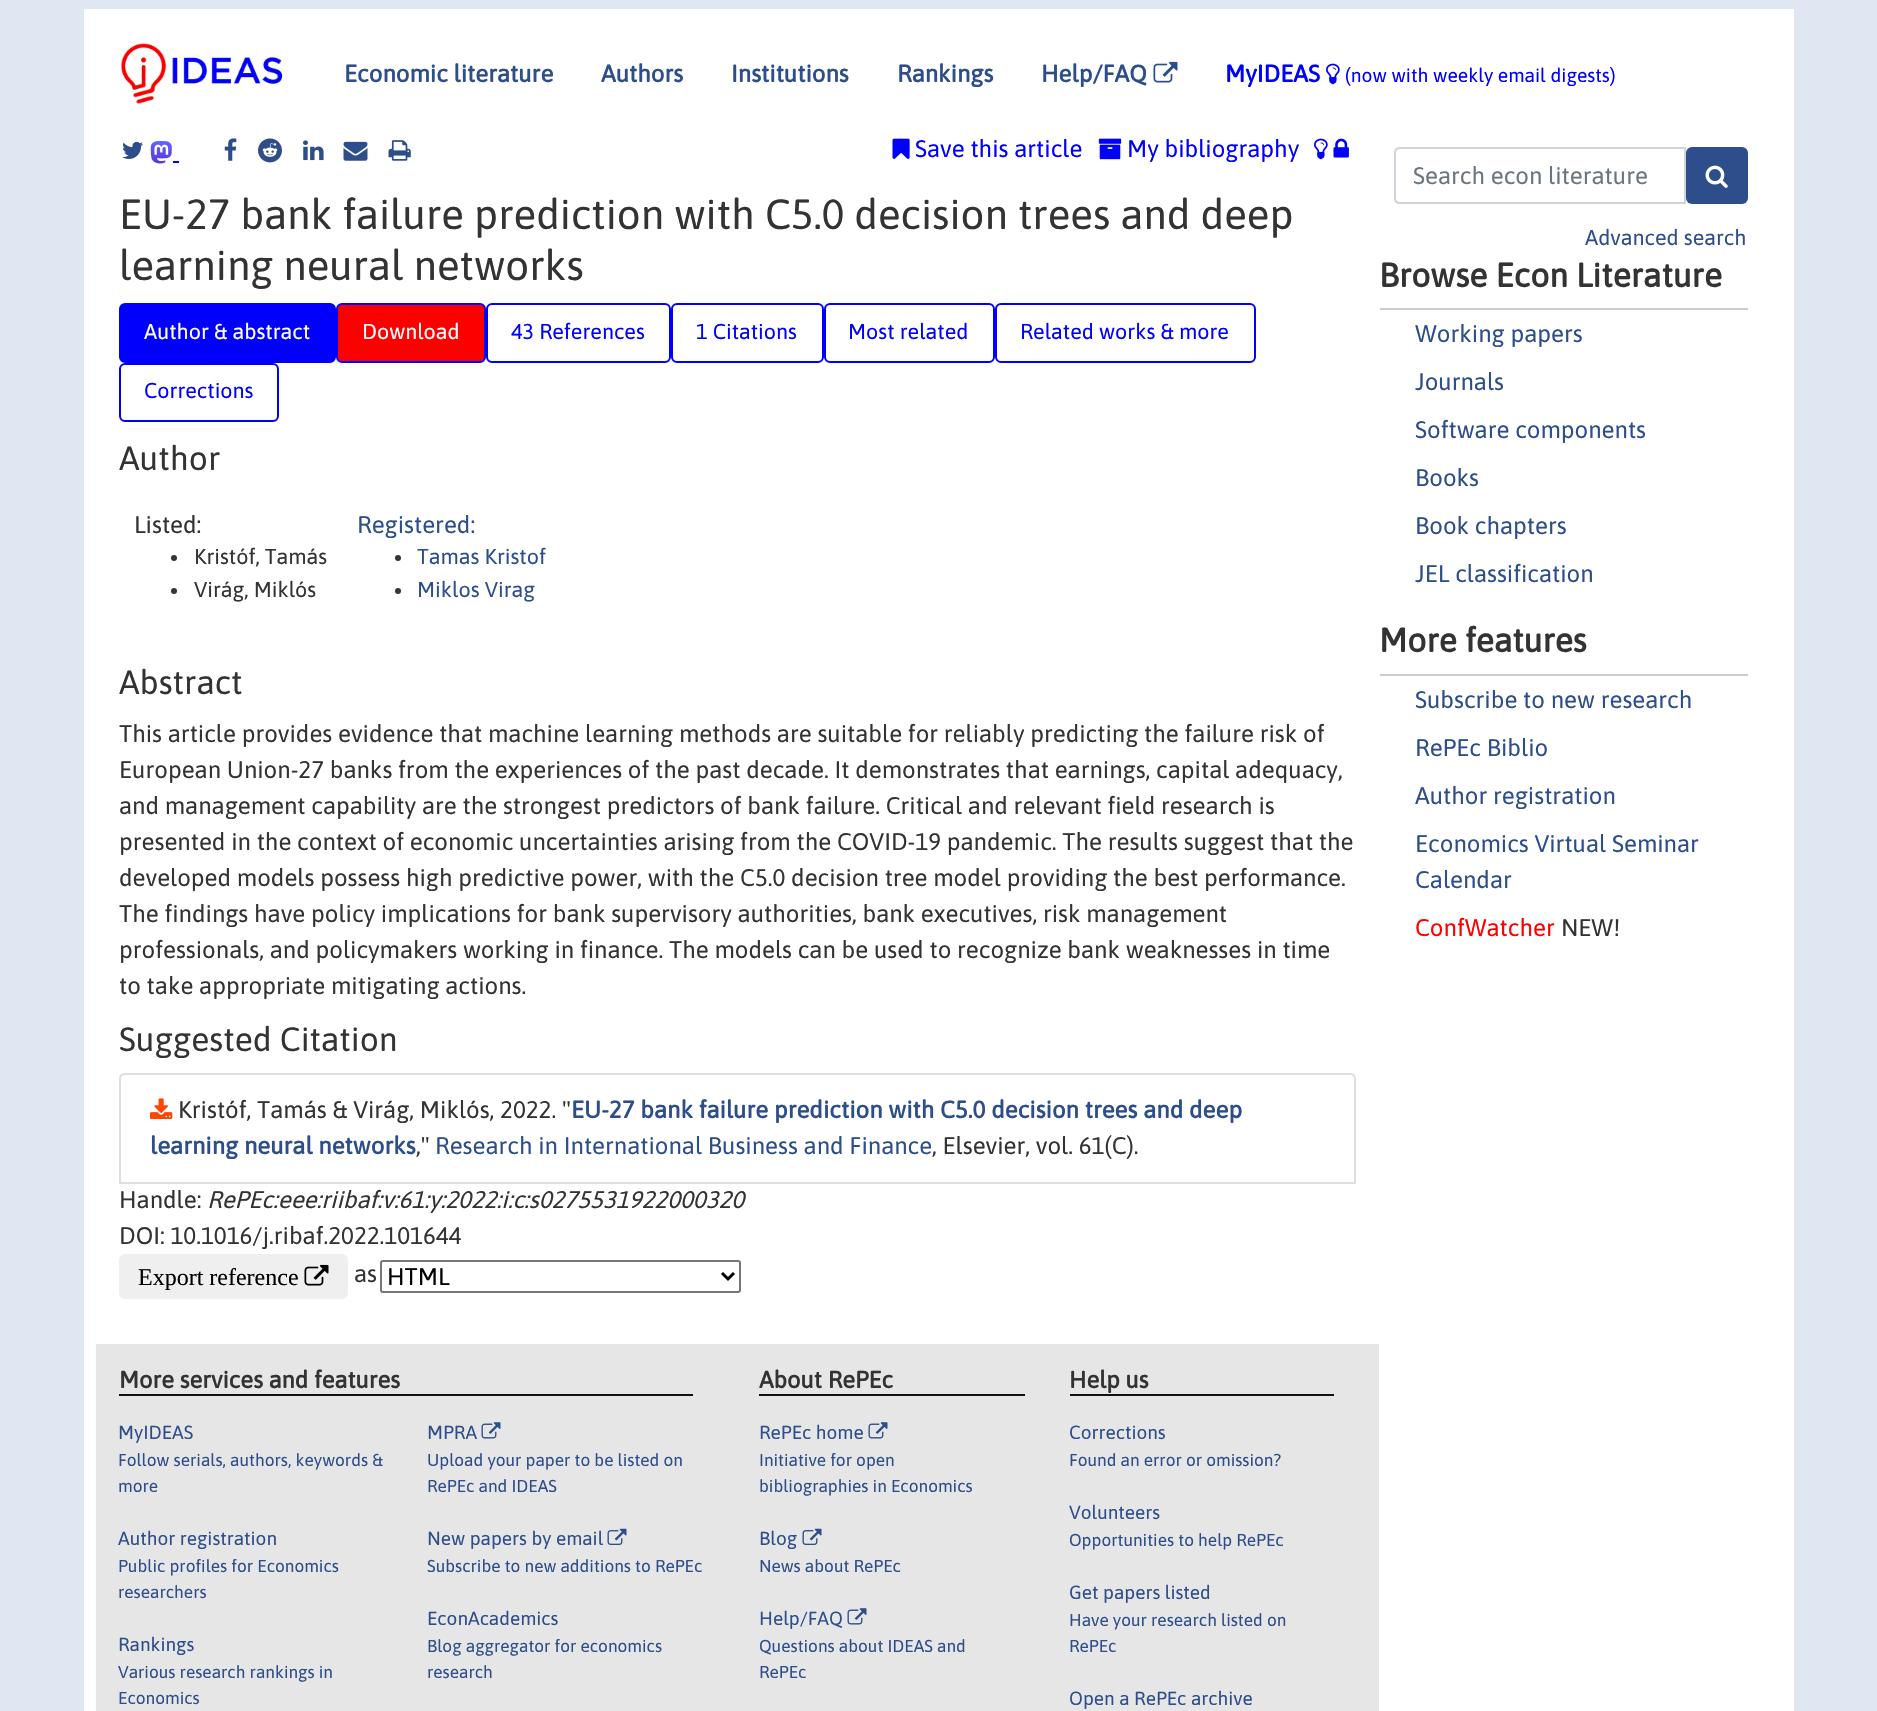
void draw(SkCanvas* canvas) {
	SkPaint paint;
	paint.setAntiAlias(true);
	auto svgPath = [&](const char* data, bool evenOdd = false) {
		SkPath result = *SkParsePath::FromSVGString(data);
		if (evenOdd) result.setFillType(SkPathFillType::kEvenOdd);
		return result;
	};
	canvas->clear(0xffdfe7f2);
	paint.setColor(0xffffffff);
	canvas->drawRect(SkRect::MakeXYWH(84, 9, 1710, 1702), paint);
	canvas->drawImageRect(SkImages::DeferredFromEncodedData(SkData::MakeFromFileName("img1.png")), SkRect::MakeXYWH(120, 43, 164, 61), SkSamplingOptions());
	SkFont f1(fontMgr->matchFamilyStyle("Asap", SkFontStyle::Bold()), 24);
	f1.setSubpixel(true);
	paint.setColor(0xff2d4e8b);
	canvas->drawString("Economic literature", 344, 82, f1, paint);
	canvas->drawString("Authors", 601, 82, f1, paint);
	canvas->drawString("Institutions", 731, 82, f1, paint);
	canvas->drawString("Rankings", 897, 82, f1, paint);
	canvas->drawString("Help/FAQ", 1041, 82, f1, paint);
	canvas->drawImageRect(SkImages::DeferredFromEncodedData(SkData::MakeFromFileName("img2.png")), SkRect::MakeXYWH(1153, 61, 25, 22), SkSamplingOptions());
	paint.setColor(0xff0000ff);
	canvas->drawString("MyIDEAS", 1225, 82, f1, paint);
	canvas->drawImageRect(SkImages::DeferredFromEncodedData(SkData::MakeFromFileName("img3.png")), SkRect::MakeXYWH(1326, 63, 14, 22), SkSamplingOptions());
	SkFont f2(fontMgr->matchFamilyStyle("Asap", SkFontStyle::Normal()), 19.25);
	f2.setSubpixel(true);
	canvas->drawString("(now with weekly email digests)", 1345, 82, f2, paint);
	canvas->drawImageRect(SkImages::DeferredFromEncodedData(SkData::MakeFromFileName("img4.png")), SkRect::MakeXYWH(122, 141, 21, 18), SkSamplingOptions());
	canvas->drawImageRect(SkImages::DeferredFromEncodedData(SkData::MakeFromFileName("img5.png")), SkRect::MakeXYWH(150, 141, 22, 23), SkSamplingOptions());
	canvas->drawRect(SkRect::MakeXYWH(173, 161, 6, 2), paint);
	canvas->drawImageRect(SkImages::DeferredFromEncodedData(SkData::MakeFromFileName("img6.png")), SkRect::MakeXYWH(224, 138, 13, 23), SkSamplingOptions());
	canvas->drawImageRect(SkImages::DeferredFromEncodedData(SkData::MakeFromFileName("img7.png")), SkRect::MakeXYWH(258, 138, 24, 25), SkSamplingOptions());
	canvas->drawImageRect(SkImages::DeferredFromEncodedData(SkData::MakeFromFileName("img8.png")), SkRect::MakeXYWH(303, 140, 21, 21), SkSamplingOptions());
	canvas->drawImageRect(SkImages::DeferredFromEncodedData(SkData::MakeFromFileName("img9.png")), SkRect::MakeXYWH(343, 141, 25, 20), SkSamplingOptions());
	canvas->drawImageRect(SkImages::DeferredFromEncodedData(SkData::MakeFromFileName("img10.png")), SkRect::MakeXYWH(388, 140, 23, 21), SkSamplingOptions());
	canvas->drawImageRect(SkImages::DeferredFromEncodedData(SkData::MakeFromFileName("img11.png")), SkRect::MakeXYWH(892, 138, 18, 21), SkSamplingOptions());
	SkFont f3(fontMgr->matchFamilyStyle("Asap", SkFontStyle::Normal()), 24);
	f3.setSubpixel(true);
	canvas->drawString("Save this article", 915, 157, f3, paint);
	canvas->drawImageRect(SkImages::DeferredFromEncodedData(SkData::MakeFromFileName("img12.png")), SkRect::MakeXYWH(1098, 138, 24, 22), SkSamplingOptions());
	canvas->drawString("My bibliography", 1127, 157, f3, paint);
	canvas->drawImageRect(SkImages::DeferredFromEncodedData(SkData::MakeFromFileName("img13.png")), SkRect::MakeXYWH(1314, 138, 14, 22), SkSamplingOptions());
	canvas->drawImageRect(SkImages::DeferredFromEncodedData(SkData::MakeFromFileName("img14.png")), SkRect::MakeXYWH(1333, 138, 16, 20), SkSamplingOptions());
	SkFont f4(fontMgr->matchFamilyStyle("Asap", SkFontStyle::Normal()), 42);
	f4.setSubpixel(true);
	paint.setColor(0xff333333);
	canvas->drawString("EU-27 bank failure prediction with C5.0 decision trees and deep", 119, 229, f4, paint);
	canvas->drawString("learning neural networks", 119, 280, f4, paint);
	paint.setColor(0xff0000fc);
	canvas->drawRoundRect(SkRect::MakeXYWH(120, 304, 215, 58), 5, 5, paint);
	paint.setStroke(true);
	paint.setStrokeWidth(2);
	canvas->drawRoundRect(SkRect::MakeXYWH(120, 304, 215, 58), 5, 5, paint);
	SkFont f5(fontMgr->matchFamilyStyle("Asap", SkFontStyle::Normal()), 21.5);
	f5.setSubpixel(true);
	paint.setStroke(false);
	paint.setColor(0xffffffff);
	canvas->drawString("Author & abstract", 144, 339, f5, paint);
	paint.setColor(0xfffc0000);
	canvas->drawRoundRect(SkRect::MakeXYWH(337, 304, 148, 58), 5, 5, paint);
	paint.setStroke(true);
	paint.setColor(0xff0000fc);
	canvas->drawRoundRect(SkRect::MakeXYWH(337, 304, 148, 58), 5, 5, paint);
	paint.setStroke(false);
	paint.setColor(0xffffffff);
	canvas->drawString("Download", 362, 339, f5, paint);
	paint.setStroke(true);
	paint.setColor(0xff0000fc);
	canvas->drawRoundRect(SkRect::MakeXYWH(487, 304, 183, 58), 5, 5, paint);
	paint.setStroke(false);
	paint.setColor(0xff0000ff);
	canvas->drawString("43 References", 511, 339, f5, paint);
	paint.setStroke(true);
	paint.setColor(0xff0000fc);
	canvas->drawRoundRect(SkRect::MakeXYWH(672, 304, 151, 58), 5, 5, paint);
	paint.setStroke(false);
	paint.setColor(0xff0000ff);
	canvas->drawString("1 Citations", 696, 339, f5, paint);
	paint.setStroke(true);
	paint.setColor(0xff0000fc);
	canvas->drawRoundRect(SkRect::MakeXYWH(825, 304, 169, 58), 5, 5, paint);
	paint.setStroke(false);
	paint.setColor(0xff0000ff);
	canvas->drawString("Most related", 848, 339, f5, paint);
	paint.setStroke(true);
	paint.setColor(0xff0000fc);
	canvas->drawRoundRect(SkRect::MakeXYWH(996, 304, 259, 58), 5, 5, paint);
	paint.setStroke(false);
	paint.setColor(0xff0000ff);
	canvas->drawString("Related works & more", 1020, 339, f5, paint);
	paint.setStroke(true);
	paint.setColor(0xff0000fc);
	canvas->drawRoundRect(SkRect::MakeXYWH(120, 364, 158, 57), 5, 5, paint);
	paint.setStroke(false);
	paint.setColor(0xff0000ff);
	canvas->drawString("Corrections", 144, 398, f5, paint);
	SkFont f6(fontMgr->matchFamilyStyle("Asap", SkFontStyle::Normal()), 33.6);
	f6.setSubpixel(true);
	paint.setColor(0xff333333);
	canvas->drawString("Author", 119, 470, f6, paint);
	canvas->drawString("Listed:", 134, 533, f3, paint);
	canvas->drawCircle(174, 558, 3, paint);
	canvas->drawString("Kristóf, Tamás", 194, 564, f5, paint);
	canvas->drawCircle(174, 591, 3, paint);
	canvas->drawString("Virág, Miklós", 194, 597, f5, paint);
	paint.setColor(0xff2d4e8b);
	canvas->drawString("Registered:", 357, 533, f3, paint);
	paint.setColor(0xff333333);
	canvas->drawCircle(398, 558, 3, paint);
	paint.setColor(0xff2d4e8b);
	canvas->drawString("Tamas Kristof", 417, 564, f5, paint);
	paint.setColor(0xff333333);
	canvas->drawCircle(398, 591, 3, paint);
	paint.setColor(0xff2d4e8b);
	canvas->drawString("Miklos Virag", 417, 597, f5, paint);
	paint.setColor(0xff333333);
	canvas->drawString("Abstract", 119, 694, f6, paint);
	canvas->drawString("This article provides evidence that machine learning methods are suitable for reliably predicting the failure risk of", 119, 742, f3, paint);
	canvas->drawString("European Union-27 banks from the experiences of the past decade. It demonstrates that earnings, capital adequacy,", 119, 778, f3, paint);
	canvas->drawString("and management capability are the strongest predictors of bank failure. Critical and relevant field research is", 119, 814, f3, paint);
	canvas->drawString("presented in the context of economic uncertainties arising from the COVID-19 pandemic. The results suggest that the", 119, 850, f3, paint);
	canvas->drawString("developed models possess high predictive power, with the C5.0 decision tree model providing the best performance.", 119, 886, f3, paint);
	canvas->drawString("The findings have policy implications for bank supervisory authorities, bank executives, risk management", 119, 922, f3, paint);
	canvas->drawString("professionals, and policymakers working in finance. The models can be used to recognize bank weaknesses in time", 119, 958, f3, paint);
	canvas->drawString("to take appropriate mitigating actions.", 119, 994, f3, paint);
	canvas->drawString("Suggested Citation", 119, 1051, f6, paint);
	paint.setStroke(true);
	paint.setColor(0xffdfdfdf);
	canvas->drawPath(svgPath("M125 1074H1350C1353 1074 1355 1076 1355 1079V1183H120V1079C120 1076 122 1074 125 1074Z"), paint);
	canvas->drawImageRect(SkImages::DeferredFromEncodedData(SkData::MakeFromFileName("img15.png")), SkRect::MakeXYWH(150, 1098, 23, 21), SkSamplingOptions());
	paint.setStroke(false);
	paint.setColor(0xff333333);
	canvas->drawString("Kristóf, Tamás & Virág, Miklós, 2022. \"", 178, 1118, f3, paint);
	paint.setColor(0xff2d4e8b);
	canvas->drawString("EU-27 bank failure prediction with C5.0 decision trees and deep", 571, 1118, f1, paint);
	canvas->drawString("learning neural networks", 150, 1154, f1, paint);
	paint.setColor(0xff333333);
	canvas->drawString(",\"", 416, 1154, f3, paint);
	paint.setColor(0xff2d4e8b);
	canvas->drawString("Research in International Business and Finance", 435, 1154, f3, paint);
	paint.setColor(0xff333333);
	canvas->drawString(", Elsevier, vol. 61(C).", 932, 1154, f3, paint);
	canvas->drawString("Handle:", 119, 1208, f3, paint);
	SkFont f7(fontMgr->matchFamilyStyle("Asap", SkFontStyle::Italic()), 24);
	f7.setSubpixel(true);
	canvas->drawString("RePEc:eee:riibaf:v:61:y:2022:i:c:s0275531922000320", 207, 1208, f7, paint);
	canvas->drawString("DOI: 10.1016/j.ribaf.2022.101644", 119, 1244, f3, paint);
	paint.setColor(0xffefefef);
	canvas->drawRoundRect(SkRect::MakeXYWH(119, 1254, 229, 45), 6, 6, paint);
	SkFont f8(fontMgr->matchFamilyStyle("Liberation Serif", SkFontStyle::Normal()), 24);
	f8.setSubpixel(true);
	paint.setColor(0xff000000);
	canvas->drawString("Export reference", 138, 1285, f8, paint);
	canvas->drawImageRect(SkImages::DeferredFromEncodedData(SkData::MakeFromFileName("img16.png")), SkRect::MakeXYWH(304, 1264, 25, 22), SkSamplingOptions());
	paint.setColor(0xff333333);
	canvas->drawString("as", 354, 1282, f3, paint);
	paint.setStroke(true);
	paint.setColor(0xff767676);
	canvas->drawRoundRect(SkRect::MakeXYWH(381, 1261, 359, 31), 2, 2, paint);
	paint.setStrokeWidth(3);
	paint.setColor(0xff000000);
	canvas->drawPath(svgPath("M722 1273L728 1279L734 1273"), paint);
	paint.setStroke(false);
	canvas->drawString("HTML", 387, 1285, f3, paint);
	paint.setColor(0xffe6e6e6);
	canvas->drawRect(SkRect::MakeXYWH(96, 1344, 1283, 367), paint);
	paint.setColor(0xff111111);
	canvas->drawRect(SkRect::MakeXYWH(119, 1394, 574, 2), paint);
	SkFont f9(fontMgr->matchFamilyStyle("Asap", SkFontStyle::Bold()), 23.75);
	f9.setSubpixel(true);
	paint.setColor(0xff333333);
	canvas->drawString("More services and features", 119, 1388, f9, paint);
	SkFont f10(fontMgr->matchFamilyStyle("Asap", SkFontStyle::Normal()), 19);
	f10.setSubpixel(true);
	paint.setColor(0xff2d4e8b);
	canvas->drawString("MyIDEAS", 118, 1439, f10, paint);
	SkFont f11(fontMgr->matchFamilyStyle("Asap", SkFontStyle::Normal()), 17.25);
	f11.setSubpixel(true);
	canvas->drawString("Follow serials, authors, keywords &", 118, 1466, f11, paint);
	canvas->drawString("more", 118, 1492, f11, paint);
	canvas->drawString("Author registration", 118, 1545, f10, paint);
	canvas->drawString("Public profiles for Economics", 118, 1572, f11, paint);
	canvas->drawString("researchers", 118, 1598, f11, paint);
	canvas->drawString("Rankings", 118, 1651, f10, paint);
	canvas->drawString("Various research rankings in", 118, 1678, f11, paint);
	canvas->drawString("Economics", 118, 1704, f11, paint);
	canvas->drawString("MPRA", 427, 1439, f10, paint);
	canvas->drawImageRect(SkImages::DeferredFromEncodedData(SkData::MakeFromFileName("img17.png")), SkRect::MakeXYWH(481, 1422, 20, 17), SkSamplingOptions());
	canvas->drawString("Upload your paper to be listed on", 427, 1466, f11, paint);
	canvas->drawString("RePEc and IDEAS", 427, 1492, f11, paint);
	canvas->drawString("New papers by email", 427, 1545, f10, paint);
	canvas->drawImageRect(SkImages::DeferredFromEncodedData(SkData::MakeFromFileName("img18.png")), SkRect::MakeXYWH(607, 1528, 20, 17), SkSamplingOptions());
	canvas->drawString("Subscribe to new additions to RePEc", 427, 1572, f11, paint);
	canvas->drawString("EconAcademics", 427, 1625, f10, paint);
	canvas->drawString("Blog aggregator for economics", 427, 1652, f11, paint);
	canvas->drawString("research", 427, 1678, f11, paint);
	paint.setColor(0xff111111);
	canvas->drawRect(SkRect::MakeXYWH(759, 1394, 266, 2), paint);
	paint.setColor(0xff333333);
	canvas->drawString("About RePEc", 759, 1388, f9, paint);
	paint.setColor(0xff2d4e8b);
	canvas->drawString("RePEc home", 759, 1439, f10, paint);
	canvas->drawImageRect(SkImages::DeferredFromEncodedData(SkData::MakeFromFileName("img17.png")), SkRect::MakeXYWH(868, 1422, 20, 17), SkSamplingOptions());
	canvas->drawString("Initiative for open", 759, 1466, f11, paint);
	canvas->drawString("bibliographies in Economics", 759, 1492, f11, paint);
	canvas->drawString("Blog", 759, 1545, f10, paint);
	canvas->drawImageRect(SkImages::DeferredFromEncodedData(SkData::MakeFromFileName("img18.png")), SkRect::MakeXYWH(802, 1528, 20, 17), SkSamplingOptions());
	canvas->drawString("News about RePEc", 759, 1572, f11, paint);
	canvas->drawString("Help/FAQ", 759, 1625, f10, paint);
	canvas->drawImageRect(SkImages::DeferredFromEncodedData(SkData::MakeFromFileName("img17.png")), SkRect::MakeXYWH(847, 1608, 20, 17), SkSamplingOptions());
	canvas->drawString("Questions about IDEAS and", 759, 1652, f11, paint);
	canvas->drawString("RePEc", 759, 1678, f11, paint);
	paint.setColor(0xff111111);
	canvas->drawRect(SkRect::MakeXYWH(1070, 1394, 264, 2), paint);
	paint.setColor(0xff333333);
	canvas->drawString("Help us", 1069, 1388, f9, paint);
	paint.setColor(0xff2d4e8b);
	canvas->drawString("Corrections", 1069, 1439, f10, paint);
	canvas->drawString("Found an error or omission?", 1069, 1466, f11, paint);
	canvas->drawString("Volunteers", 1069, 1519, f10, paint);
	canvas->drawString("Opportunities to help RePEc", 1069, 1546, f11, paint);
	canvas->drawString("Get papers listed", 1069, 1599, f10, paint);
	canvas->drawString("Have your research listed on", 1069, 1626, f11, paint);
	canvas->drawString("RePEc", 1069, 1652, f11, paint);
	canvas->drawString("Open a RePEc archive", 1069, 1705, f10, paint);
	paint.setStroke(true);
	paint.setStrokeWidth(2);
	paint.setColor(0xffced4da);
	canvas->drawPath(svgPath("M1400 148H1685V203H1400C1397 203 1395 201 1395 198V153C1395 150 1397 148 1400 148Z"), paint);
	paint.setStroke(false);
	paint.setColor(0xff6c757d);
	canvas->drawString("Search econ literature", 1413, 184, f3, paint);
	paint.setColor(0xff2d4e8b);
	canvas->drawRoundRect(SkRect::MakeXYWH(1686, 147, 62, 57), 6, 6, paint);
	canvas->drawImageRect(SkImages::DeferredFromEncodedData(SkData::MakeFromFileName("img19.png")), SkRect::MakeXYWH(1705, 165, 23, 23), SkSamplingOptions());
	canvas->drawString("Advanced search", 1585, 245, f5, paint);
	SkFont f12(fontMgr->matchFamilyStyle("Asap", SkFontStyle::Bold()), 33.6);
	f12.setSubpixel(true);
	paint.setColor(0xff333333);
	canvas->drawString("Browse Econ Literature", 1379, 287, f12, paint);
	paint.setColor(0xffcccccc);
	canvas->drawRect(SkRect::MakeXYWH(1380, 308, 368, 2), paint);
	paint.setColor(0xff2d4e8b);
	canvas->drawString("Working papers", 1415, 342, f3, paint);
	canvas->drawString("Journals", 1415, 390, f3, paint);
	canvas->drawString("Software components", 1415, 438, f3, paint);
	canvas->drawString("Books", 1415, 486, f3, paint);
	canvas->drawString("Book chapters", 1415, 534, f3, paint);
	canvas->drawString("JEL classification", 1415, 582, f3, paint);
	paint.setColor(0xff333333);
	canvas->drawString("More features", 1379, 652, f12, paint);
	paint.setColor(0xffcccccc);
	canvas->drawRect(SkRect::MakeXYWH(1380, 674, 368, 2), paint);
	paint.setColor(0xff2d4e8b);
	canvas->drawString("Subscribe to new research", 1415, 708, f3, paint);
	canvas->drawString("RePEc Biblio", 1415, 756, f3, paint);
	canvas->drawString("Author registration", 1415, 804, f3, paint);
	canvas->drawString("Economics Virtual Seminar", 1415, 852, f3, paint);
	canvas->drawString("Calendar", 1415, 888, f3, paint);
	paint.setColor(0xffff0000);
	canvas->drawString("ConfWatcher", 1415, 936, f3, paint);
	paint.setColor(0xff333333);
	canvas->drawString("NEW!", 1561, 936, f3, paint);
}
